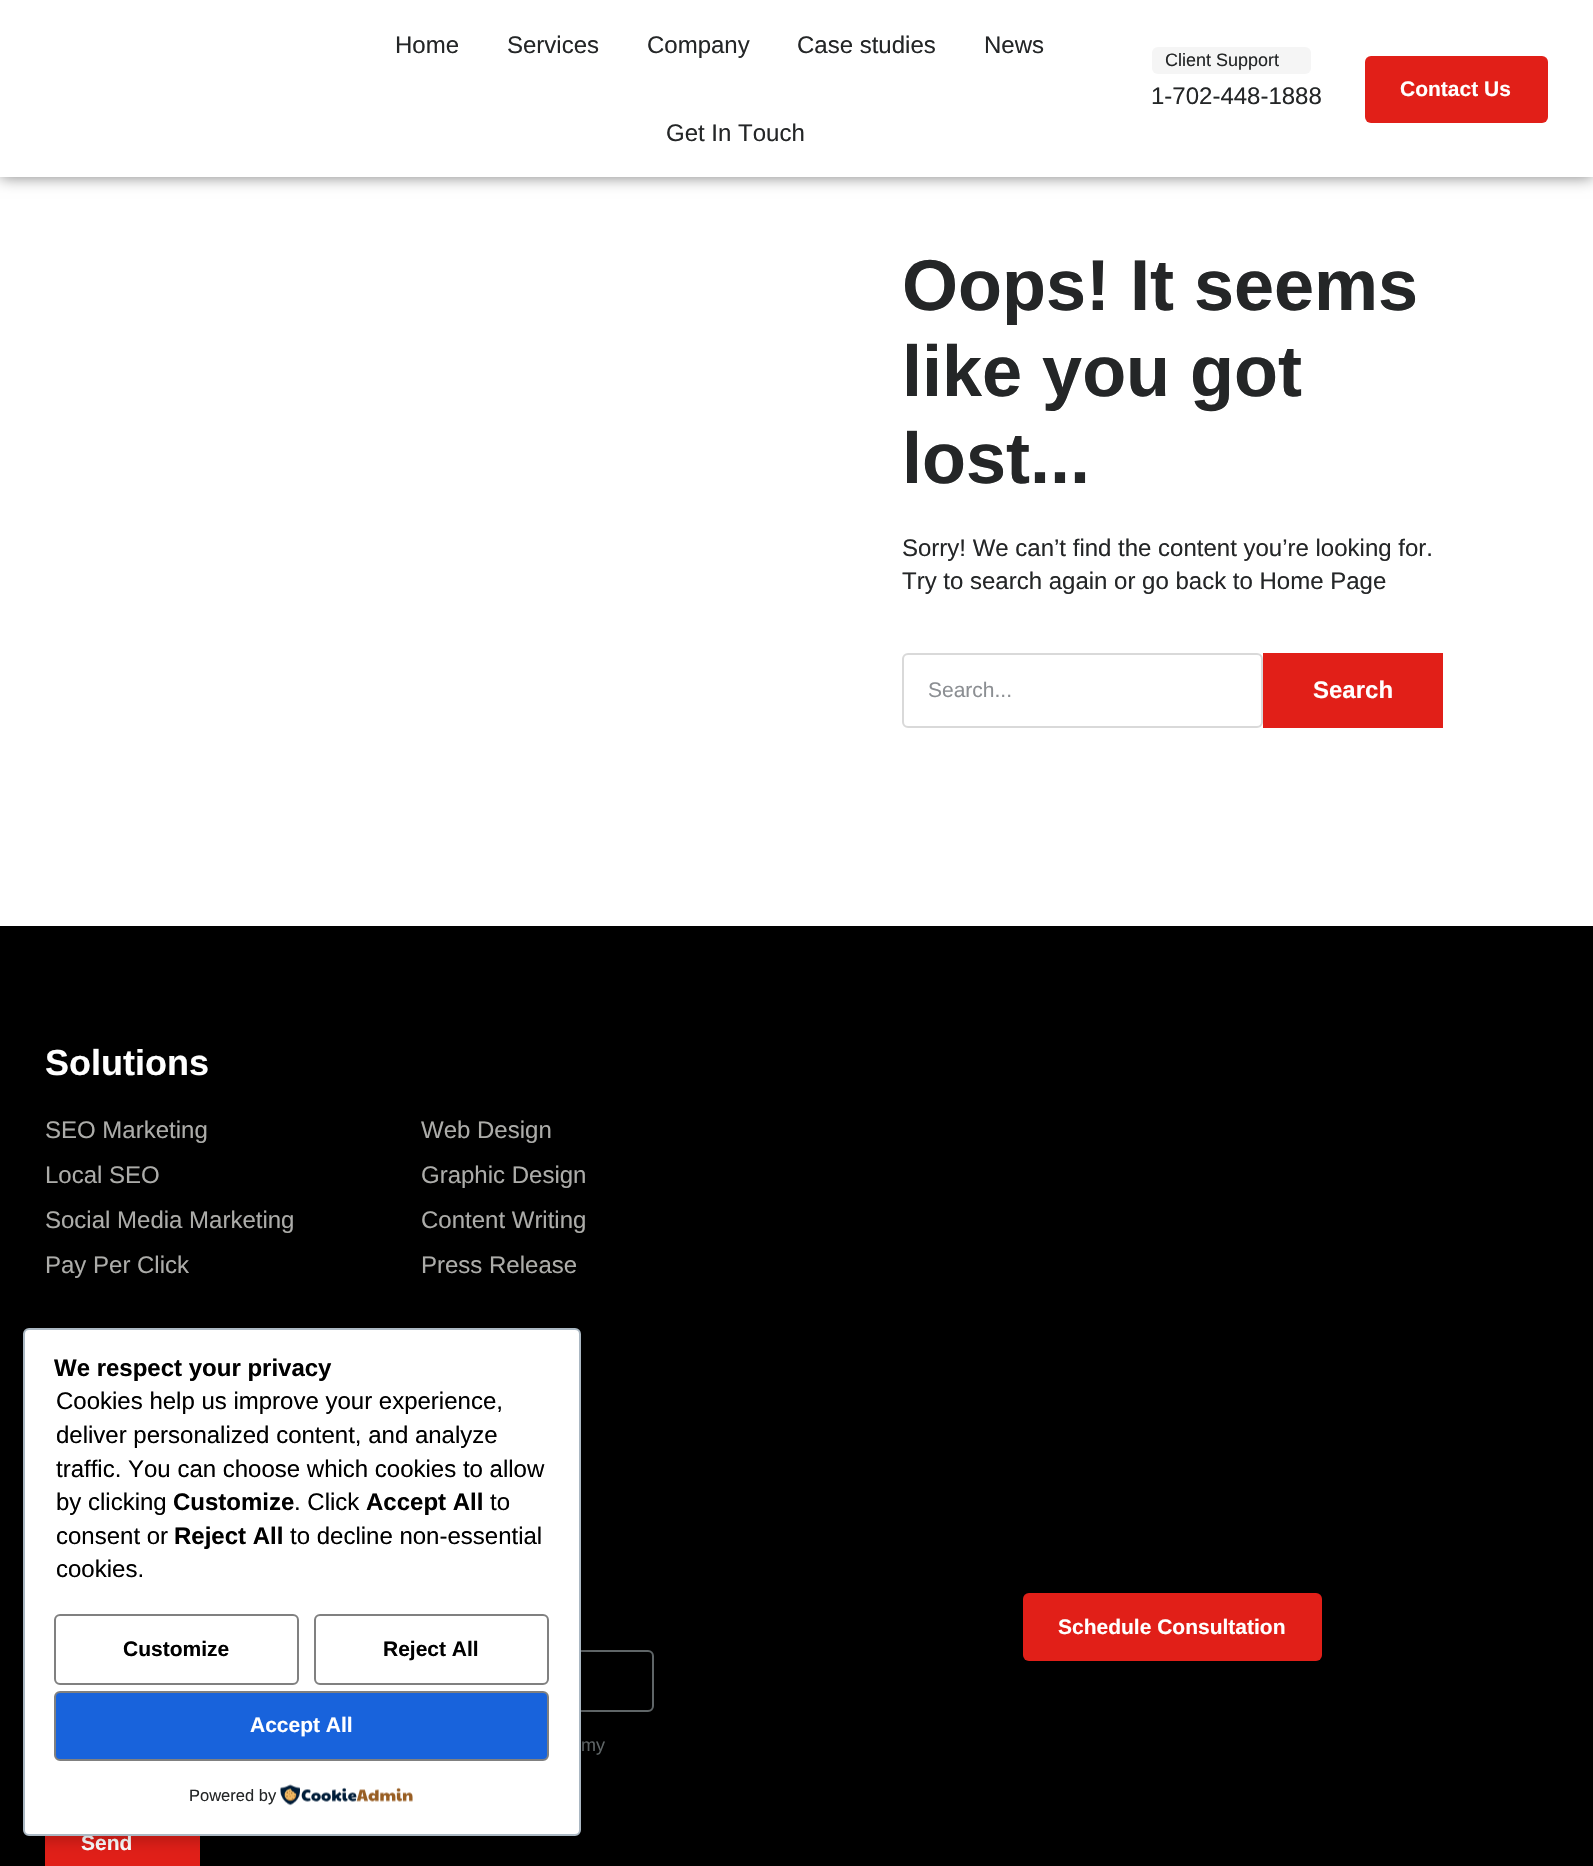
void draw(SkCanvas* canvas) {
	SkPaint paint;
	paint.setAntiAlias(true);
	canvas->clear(0xffffffff);
	paint.setColor(0x80000000);
	paint.setMaskFilter(SkMaskFilter::MakeBlur(kNormal_SkBlurStyle, 7.5));
	canvas->drawRect(SkRect::MakeXYWH(0, 0, 1593, 177), paint);
	paint.setMaskFilter(nullptr);
	paint.setColor(0xffffffff);
	canvas->drawRect(SkRect::MakeXYWH(0, 0, 1593, 177), paint);
	SkFont f1(fontMgr->matchFamilyStyle("Liberation Sans", SkFontStyle::Normal()), 24);
	f1.setSubpixel(true);
	paint.setColor(0xff242627);
	canvas->drawString("Home", 395, 53, f1, paint);
	canvas->drawString("Services", 507, 53, f1, paint);
	canvas->drawString("Company", 647, 53, f1, paint);
	canvas->drawString("Case studies", 797, 53, f1, paint);
	canvas->drawString("News", 984, 53, f1, paint);
	canvas->drawString("Get In Touch", 666, 141, f1, paint);
	paint.setColor(0xfff5f5f5);
	canvas->drawRoundRect(SkRect::MakeXYWH(1152, 47, 159, 27), 6, 6, paint);
	SkFont f2(fontMgr->matchFamilyStyle("Liberation Sans", SkFontStyle::Normal()), 18);
	f2.setSubpixel(true);
	paint.setColor(0xff242627);
	canvas->drawString("Client Support", 1165, 66, f2, paint);
	canvas->drawString("1-702-448-1888", 1151, 104, f1, paint);
	paint.setColor(0xffe11f18);
	canvas->drawRoundRect(SkRect::MakeXYWH(1365, 56, 183, 67), 6, 6, paint);
	SkFont f3(fontMgr->matchFamilyStyle("Liberation Sans", SkFontStyle::Bold()), 21);
	f3.setSubpixel(true);
	paint.setColor(0xffffffff);
	canvas->drawString("Contact Us", 1400, 96, f3, paint);
	SkFont f4(fontMgr->matchFamilyStyle("Liberation Sans", SkFontStyle::Bold()), 72);
	f4.setSubpixel(true);
	paint.setColor(0xff242627);
	canvas->drawString("Oops! It seems", 902, 310, f4, paint);
	canvas->drawString("like you got", 902, 396, f4, paint);
	canvas->drawString("lost...", 902, 483, f4, paint);
	canvas->drawString("Sorry! We can’t find the content you’re looking for.", 902, 556, f1, paint);
	canvas->drawString("Try to search again or go back to Home Page", 902, 589, f1, paint);
	paint.setStroke(true);
	paint.setStrokeWidth(2);
	paint.setColor(0xffd9d9d9);
	canvas->drawRoundRect(SkRect::MakeXYWH(903, 654, 359, 73), 5, 5, paint);
	SkFont f5(fontMgr->matchFamilyStyle("Liberation Sans", SkFontStyle::Normal()), 21);
	f5.setSubpixel(true);
	paint.setStroke(false);
	paint.setColor(0xff8c8f93);
	canvas->drawString("Search...", 928, 697, f5, paint);
	paint.setColor(0xffe11f18);
	canvas->drawRect(SkRect::MakeXYWH(1263, 653, 180, 75), paint);
	SkFont f6(fontMgr->matchFamilyStyle("Liberation Sans", SkFontStyle::Bold()), 24);
	f6.setSubpixel(true);
	paint.setColor(0xffffffff);
	canvas->drawString("Search", 1313, 698, f6, paint);
	paint.setColor(0xff000000);
	canvas->drawRect(SkRect::MakeXYWH(0, 926, 1593, 940), paint);
	SkFont f7(fontMgr->matchFamilyStyle("Liberation Sans", SkFontStyle::Bold()), 36);
	f7.setSubpixel(true);
	paint.setColor(0xffffffff);
	canvas->drawString("Solutions", 45, 1075, f7, paint);
	paint.setColor(0xffacaca9);
	canvas->drawString("SEO Marketing", 45, 1138, f1, paint);
	canvas->drawString("Local SEO", 45, 1183, f1, paint);
	canvas->drawString("Social Media Marketing", 45, 1228, f1, paint);
	canvas->drawString("Pay Per Click", 45, 1273, f1, paint);
	canvas->drawString("Web Design", 421, 1138, f1, paint);
	canvas->drawString("Graphic Design", 421, 1183, f1, paint);
	canvas->drawString("Content Writing", 421, 1228, f1, paint);
	canvas->drawString("Press Release", 421, 1273, f1, paint);
	paint.setStroke(true);
	paint.setColor(0xff5f6567);
	canvas->drawRoundRect(SkRect::MakeXYWH(46, 1651, 607, 60), 5, 5, paint);
	paint.setStroke(false);
	canvas->drawString("my", 581, 1751, f2, paint);
	paint.setColor(0xffe11f18);
	canvas->drawRect(SkRect::MakeXYWH(45, 1836, 155, 30), paint);
	paint.setColor(0xffffffff);
	canvas->drawString("Send", 81, 1850, f3, paint);
	paint.setColor(0xffe11f18);
	canvas->drawRoundRect(SkRect::MakeXYWH(1023, 1593, 299, 68), 6, 6, paint);
	paint.setColor(0xffffffff);
	canvas->drawString("Schedule Consultation", 1058, 1634, f3, paint);
	paint.setColor(0x33000000);
	paint.setMaskFilter(SkMaskFilter::MakeBlur(kNormal_SkBlurStyle, 7.5));
	canvas->drawRoundRect(SkRect::MakeXYWH(24, 1332, 558, 509), 6, 6, paint);
	paint.setMaskFilter(nullptr);
	paint.setColor(0xffffffff);
	canvas->drawRoundRect(SkRect::MakeXYWH(24, 1329, 556, 506), 5, 5, paint);
	paint.setStroke(true);
	paint.setColor(0xffabb8c3);
	canvas->drawRoundRect(SkRect::MakeXYWH(24, 1329, 556, 506), 5, 5, paint);
	paint.setStroke(false);
	paint.setColor(0xff000000);
	canvas->drawString("We respect your privacy", 54, 1376, f6, paint);
	canvas->drawString("Cookies help us improve your experience,", 56, 1409, f1, paint);
	canvas->drawString("deliver personalized content, and analyze", 56, 1443, f1, paint);
	canvas->drawString("traffic. You can choose which cookies to allow", 56, 1477, f1, paint);
	canvas->drawString("by clicking", 56, 1510, f1, paint);
	canvas->drawString("Customize", 173, 1510, f6, paint);
	canvas->drawString(". Click", 294, 1510, f1, paint);
	canvas->drawString("Accept All", 366, 1510, f6, paint);
	canvas->drawString("to", 490, 1510, f1, paint);
	canvas->drawString("consent or", 56, 1544, f1, paint);
	canvas->drawString("Reject All", 174, 1544, f6, paint);
	canvas->drawString("to decline non-essential", 290, 1544, f1, paint);
	canvas->drawString("cookies.", 56, 1577, f1, paint);
	paint.setStroke(true);
	paint.setColor(0xff808080);
	canvas->drawRoundRect(SkRect::MakeXYWH(55, 1615, 243, 69), 5, 5, paint);
	paint.setStroke(false);
	paint.setColor(0xff000000);
	canvas->drawString("Customize", 123, 1656, f3, paint);
	paint.setStroke(true);
	paint.setColor(0xff808080);
	canvas->drawRoundRect(SkRect::MakeXYWH(315, 1615, 233, 69), 5, 5, paint);
	paint.setStroke(false);
	paint.setColor(0xff000000);
	canvas->drawString("Reject All", 383, 1656, f3, paint);
	paint.setColor(0xff1863dc);
	canvas->drawRoundRect(SkRect::MakeXYWH(55, 1692, 493, 68), 5, 5, paint);
	paint.setStroke(true);
	paint.setColor(0xff808080);
	canvas->drawRoundRect(SkRect::MakeXYWH(55, 1692, 493, 68), 5, 5, paint);
	paint.setStroke(false);
	paint.setColor(0xffffffff);
	canvas->drawString("Accept All", 250, 1732, f3, paint);
	SkFont f8(fontMgr->matchFamilyStyle("Liberation Sans", SkFontStyle::Normal()), 16.5);
	f8.setSubpixel(true);
	paint.setColor(0xff242627);
	canvas->drawString("Powered by", 189, 1801, f8, paint);
	canvas->drawImageRect(SkImages::DeferredFromEncodedData(SkData::MakeFromFileName("img1.png")), SkRect::MakeXYWH(280, 1784, 133, 22), SkSamplingOptions());
}
